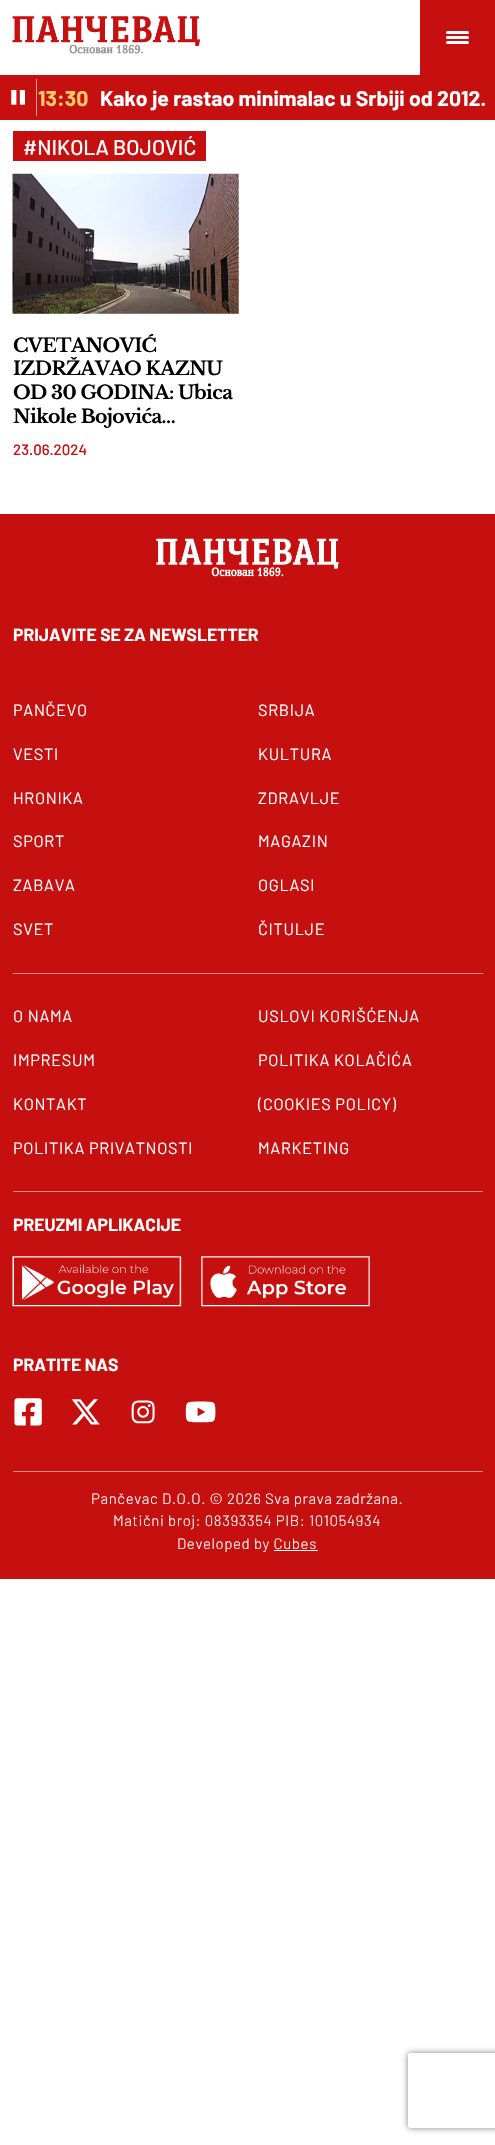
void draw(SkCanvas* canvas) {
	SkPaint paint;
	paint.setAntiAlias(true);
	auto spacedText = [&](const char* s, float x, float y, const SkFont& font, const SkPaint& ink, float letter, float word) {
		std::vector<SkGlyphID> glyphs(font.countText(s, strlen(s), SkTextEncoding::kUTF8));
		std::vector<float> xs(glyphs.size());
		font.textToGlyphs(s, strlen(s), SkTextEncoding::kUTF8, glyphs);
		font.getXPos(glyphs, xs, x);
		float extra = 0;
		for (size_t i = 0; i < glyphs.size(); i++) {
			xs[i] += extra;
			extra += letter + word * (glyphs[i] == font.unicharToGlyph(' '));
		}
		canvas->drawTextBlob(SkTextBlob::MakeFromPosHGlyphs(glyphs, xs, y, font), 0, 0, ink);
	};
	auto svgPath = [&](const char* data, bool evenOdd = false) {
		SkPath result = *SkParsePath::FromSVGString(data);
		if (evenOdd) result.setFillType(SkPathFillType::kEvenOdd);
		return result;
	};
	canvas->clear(0xffffffff);
	canvas->drawImageRect(SkImages::DeferredFromEncodedData(SkData::MakeFromFileName("img1.png")), SkRect::MakeXYWH(12, 16, 188, 38), SkSamplingOptions());
	paint.setColor(0xffc61010);
	canvas->drawRect(SkRect::MakeXYWH(420, 0, 75, 75), paint);
	paint.setColor(0xffffffff);
	canvas->drawRoundRect(SkRect::MakeXYWH(446, 31, 23, 3), 1.5, 1.5, paint);
	canvas->drawRoundRect(SkRect::MakeXYWH(446, 36, 23, 3), 1.5, 1.5, paint);
	canvas->drawRoundRect(SkRect::MakeXYWH(446, 41, 23, 3), 1.5, 1.5, paint);
	paint.setColor(0xffc61010);
	canvas->drawRect(SkRect::MakeXYWH(0, 75, 495, 45), paint);
	canvas->drawImageRect(SkImages::DeferredFromEncodedData(SkData::MakeFromFileName("img2.png")), SkRect::MakeXYWH(11, 90, 14, 15), SkSamplingOptions());
	paint.setColor(0xffe89f9f);
	canvas->drawRect(SkRect::MakeXYWH(36, 79, 1, 37), paint);
	SkFont f1(fontMgr->matchFamilyStyle("Barlow", SkFontStyle::Bold()), 21.25);
	f1.setSubpixel(true);
	paint.setColor(0xffffcb69);
	canvas->drawString("13:30", 38, 106, f1, paint);
	paint.setColor(0xffffffff);
	canvas->drawString("Kako je rastao minimalac u Srbiji od 2012.", 100, 106, f1, paint);
	paint.setColor(0xffc61010);
	canvas->drawRect(SkRect::MakeXYWH(13, 131, 193, 30), paint);
	SkFont f2(fontMgr->matchFamilyStyle("Barlow", SkFontStyle(500, SkFontStyle::kNormal_Width, SkFontStyle::kUpright_Slant)), 21.25);
	f2.setSubpixel(true);
	paint.setColor(0xffffffff);
	canvas->drawString("#NIKOLA BOJOVIĆ", 23, 155, f2, paint);
	canvas->drawImageRect(SkImages::DeferredFromEncodedData(SkData::MakeFromFileName("img3.png")), SkRect::MakeXYWH(12, 173, 227, 141), SkSamplingOptions());
	SkFont f3(fontMgr->matchFamilyStyle("Libre Baskerville", SkFontStyle::Bold()), 18.75);
	f3.setSubpixel(true);
	paint.setColor(0xff000000);
	spacedText("CVETANOVIĆ", 13, 352, f3, paint, -0.6, 0);
	spacedText("IZDRŽAVAO KAZNU", 13, 375, f3, paint, -0.6, 0);
	spacedText("OD 30 GODINA: Ubica", 13, 399, f3, paint, -0.6, 0);
	spacedText("Nikole Bojovića…", 13, 423, f3, paint, -0.6, 0);
	SkFont f4(fontMgr->matchFamilyStyle("Barlow", SkFontStyle(500, SkFontStyle::kNormal_Width, SkFontStyle::kUpright_Slant)), 15);
	f4.setSubpixel(true);
	paint.setColor(0xffc61010);
	canvas->drawString("23.06.2024", 13, 455, f4, paint);
	canvas->drawRect(SkRect::MakeXYWH(0, 514, 495, 1065), paint);
	canvas->drawImageRect(SkImages::DeferredFromEncodedData(SkData::MakeFromFileName("img4.png")), SkRect::MakeXYWH(156, 538, 183, 39), SkSamplingOptions());
	SkFont f5(fontMgr->matchFamilyStyle("Barlow", SkFontStyle::Bold()), 17.5);
	f5.setSubpixel(true);
	paint.setColor(0xffffffff);
	canvas->drawString("PRIJAVITE SE ZA NEWSLETTER", 13, 641, f5, paint);
	paint.setColor(0xffe38888);
	canvas->drawRect(SkRect::MakeXYWH(13, 973, 470, 1), paint);
	SkFont f6(fontMgr->matchFamilyStyle("Barlow", SkFontStyle::Normal()), 16.25);
	f6.setSubpixel(true);
	paint.setColor(0xffffffff);
	spacedText("PANČEVO", 13, 716, f6, paint, 0.7, 0);
	spacedText("SRBIJA", 258, 716, f6, paint, 0.7, 0);
	spacedText("VESTI", 13, 760, f6, paint, 0.7, 0);
	spacedText("KULTURA", 258, 760, f6, paint, 0.7, 0);
	spacedText("HRONIKA", 13, 804, f6, paint, 0.7, 0);
	spacedText("ZDRAVLJE", 258, 804, f6, paint, 0.7, 0);
	spacedText("SPORT", 13, 847, f6, paint, 0.7, 0);
	spacedText("MAGAZIN", 258, 847, f6, paint, 0.7, 0);
	spacedText("ZABAVA", 13, 891, f6, paint, 0.7, 0);
	spacedText("OGLASI", 258, 891, f6, paint, 0.7, 0);
	spacedText("SVET", 13, 935, f6, paint, 0.7, 0);
	spacedText("ČITULJE", 258, 935, f6, paint, 0.7, 0);
	paint.setColor(0xffe38888);
	canvas->drawRect(SkRect::MakeXYWH(13, 1191, 470, 1), paint);
	paint.setColor(0xffffffff);
	spacedText("O NAMA", 13, 1022, f6, paint, 0.7, 0);
	spacedText("USLOVI KORIŠĆENJA", 258, 1022, f6, paint, 0.7, 0);
	spacedText("IMPRESUM", 13, 1066, f6, paint, 0.7, 0);
	spacedText("POLITIKA KOLAČIĆA", 258, 1066, f6, paint, 0.7, 0);
	spacedText("(COOKIES POLICY)", 258, 1110, f6, paint, 0.7, 0);
	spacedText("KONTAKT", 13, 1110, f6, paint, 0.7, 0);
	spacedText("POLITIKA PRIVATNOSTI", 13, 1154, f6, paint, 0.7, 0);
	spacedText("MARKETING", 258, 1154, f6, paint, 0.7, 0);
	paint.setColor(0xffe38888);
	canvas->drawRect(SkRect::MakeXYWH(13, 1471, 470, 1), paint);
	paint.setColor(0xffffffff);
	canvas->drawString("PREUZMI APLIKACIJE", 13, 1231, f5, paint);
	canvas->drawImageRect(SkImages::DeferredFromEncodedData(SkData::MakeFromFileName("img5.png")), SkRect::MakeXYWH(12, 1256, 170, 51), SkSamplingOptions());
	canvas->drawImageRect(SkImages::DeferredFromEncodedData(SkData::MakeFromFileName("img6.png")), SkRect::MakeXYWH(201, 1256, 169, 51), SkSamplingOptions());
	canvas->drawString("PRATITE NAS", 13, 1371, f5, paint);
	canvas->drawImageRect(SkImages::DeferredFromEncodedData(SkData::MakeFromFileName("img7.png")), SkRect::MakeXYWH(14, 1398, 28, 28), SkSamplingOptions());
	canvas->drawImageRect(SkImages::DeferredFromEncodedData(SkData::MakeFromFileName("img8.png")), SkRect::MakeXYWH(71, 1399, 29, 26), SkSamplingOptions());
	canvas->drawImageRect(SkImages::DeferredFromEncodedData(SkData::MakeFromFileName("img9.png")), SkRect::MakeXYWH(131, 1400, 24, 24), SkSamplingOptions());
	canvas->drawImageRect(SkImages::DeferredFromEncodedData(SkData::MakeFromFileName("img10.png")), SkRect::MakeXYWH(185, 1401, 31, 22), SkSamplingOptions());
	SkFont f7(fontMgr->matchFamilyStyle("Barlow", SkFontStyle(300, SkFontStyle::kNormal_Width, SkFontStyle::kUpright_Slant)), 15);
	f7.setSubpixel(true);
	spacedText("Pančevac D.O.O. © 2026 Sva prava zadržana.", 91, 1504, f7, paint, 0.6, 0);
	spacedText("Matični broj: 08393354 PIB: 101054934", 113, 1526, f7, paint, 0.6, 0);
	spacedText("Developed by Cubes", 177, 1549, f7, paint, 0.6, 0);
	canvas->drawRect(SkRect::MakeXYWH(274, 1550, 44, 1), paint);
	canvas->save();
	canvas->clipPath(svgPath("M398 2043H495V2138H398ZM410.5 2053H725.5C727 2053 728 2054 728 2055.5V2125.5C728 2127 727 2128 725.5 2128H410.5C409 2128 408 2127 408 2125.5V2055.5C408 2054 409 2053 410.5 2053Z", true), true);
	paint.setColor(0xff808080);
	paint.setMaskFilter(SkMaskFilter::MakeBlur(kNormal_SkBlurStyle, 3));
	canvas->drawRoundRect(SkRect::MakeXYWH(408, 2053, 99, 75), 2.5, 2.5, paint);
	paint.setMaskFilter(nullptr);
	canvas->restore();
}
